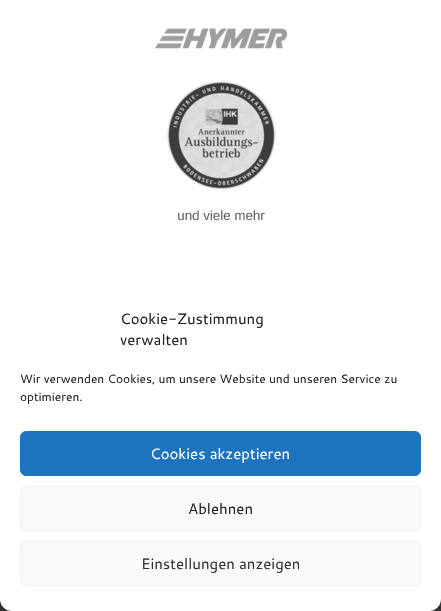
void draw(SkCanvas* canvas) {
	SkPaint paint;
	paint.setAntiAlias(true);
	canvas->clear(0xffffffff);
	canvas->drawImageRect(SkImages::DeferredFromEncodedData(SkData::MakeFromFileName("img1.png")), SkRect::MakeXYWH(155, 28, 133, 193), SkSamplingOptions());
	paint.setColor(0xff313131);
	canvas->drawRect(SkRect::MakeXYWH(0, 599, 441, 12), paint);
	paint.setColor(0xffffffff);
	canvas->drawRoundRect(SkRect::MakeXYWH(0, 293, 441, 318), 12, 12, paint);
	SkFont f1(fontMgr->matchFamilyStyle("Cantarell", SkFontStyle::Normal()), 15);
	f1.setSubpixel(true);
	paint.setColor(0xff222222);
	canvas->drawString("Cookie-Zustimmung", 120, 324, f1, paint);
	canvas->drawString("verwalten", 120, 345, f1, paint);
	SkFont f2(fontMgr->matchFamilyStyle("Cantarell", SkFontStyle::Normal()), 12);
	f2.setSubpixel(true);
	canvas->drawString("Wir verwenden Cookies, um unsere Website und unseren Service zu", 20, 383, f2, paint);
	canvas->drawString("optimieren.", 20, 401, f2, paint);
	paint.setColor(0xff1e73be);
	canvas->drawRoundRect(SkRect::MakeXYWH(20.5, 431.5, 400, 44), 5.5, 5.5, paint);
	paint.setStroke(true);
	paint.setStrokeWidth(1);
	canvas->drawRoundRect(SkRect::MakeXYWH(20.5, 431.5, 400, 44), 5.5, 5.5, paint);
	paint.setStroke(false);
	paint.setColor(0xffffffff);
	canvas->drawString("Cookies akzeptieren", 150, 459, f1, paint);
	paint.setColor(0xfff9f9f9);
	canvas->drawRoundRect(SkRect::MakeXYWH(20.5, 486.5, 400, 44), 5.5, 5.5, paint);
	paint.setStroke(true);
	paint.setColor(0xfff2f2f2);
	canvas->drawRoundRect(SkRect::MakeXYWH(20.5, 486.5, 400, 44), 5.5, 5.5, paint);
	paint.setStroke(false);
	paint.setColor(0xff222222);
	canvas->drawString("Ablehnen", 188, 514, f1, paint);
	paint.setColor(0xfff9f9f9);
	canvas->drawRoundRect(SkRect::MakeXYWH(20.5, 541.5, 400, 44), 5.5, 5.5, paint);
	paint.setStroke(true);
	paint.setColor(0xfff2f2f2);
	canvas->drawRoundRect(SkRect::MakeXYWH(20.5, 541.5, 400, 44), 5.5, 5.5, paint);
	paint.setStroke(false);
	paint.setColor(0xff333333);
	canvas->drawString("Einstellungen anzeigen", 141, 569, f1, paint);
}
